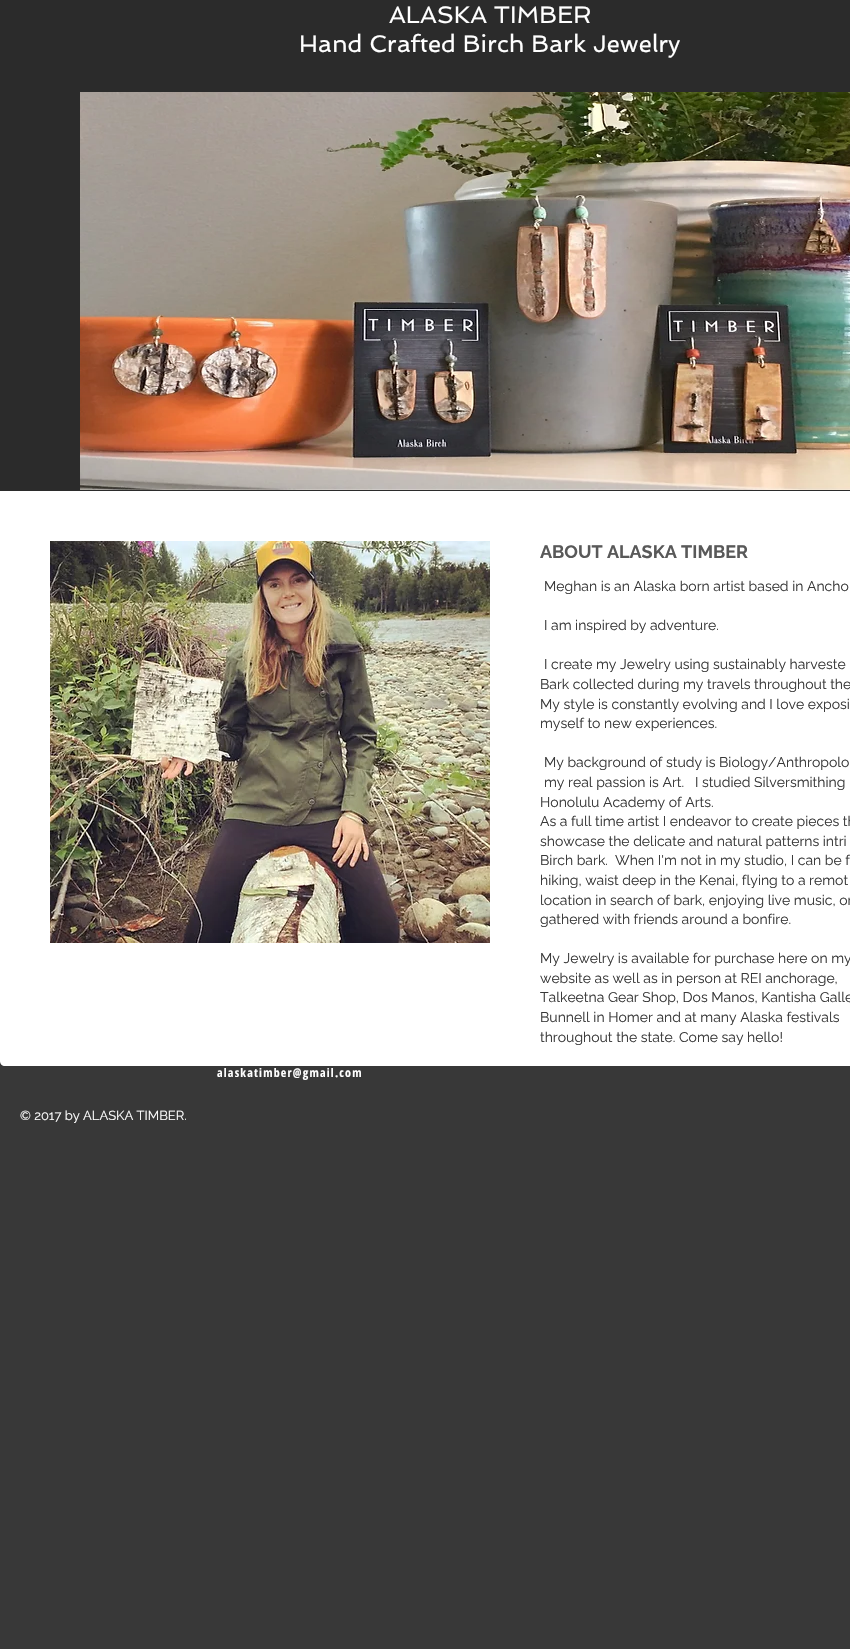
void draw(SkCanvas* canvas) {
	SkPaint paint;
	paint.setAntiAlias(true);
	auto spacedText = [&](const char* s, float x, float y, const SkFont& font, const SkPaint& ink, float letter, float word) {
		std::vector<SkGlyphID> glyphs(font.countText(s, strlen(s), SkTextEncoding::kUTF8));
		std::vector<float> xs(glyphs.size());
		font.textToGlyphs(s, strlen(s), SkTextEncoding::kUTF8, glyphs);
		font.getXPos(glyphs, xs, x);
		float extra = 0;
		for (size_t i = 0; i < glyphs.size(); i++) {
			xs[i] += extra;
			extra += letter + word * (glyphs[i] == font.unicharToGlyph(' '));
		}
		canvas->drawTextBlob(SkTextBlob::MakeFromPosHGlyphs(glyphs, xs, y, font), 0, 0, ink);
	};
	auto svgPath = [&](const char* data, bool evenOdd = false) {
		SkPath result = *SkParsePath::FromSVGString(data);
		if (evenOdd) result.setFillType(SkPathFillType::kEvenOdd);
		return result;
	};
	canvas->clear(0xff383838);
	paint.setColor(0xff2b2b2b);
	canvas->drawRect(SkRect::MakeXYWH(0, 0, 850, 491), paint);
	SkFont f1(fontMgr->matchFamilyStyle("Spinnaker", SkFontStyle::Normal()), 24);
	f1.setSubpixel(true);
	paint.setColor(0xffffffff);
	canvas->drawString("ALASKA TIMBER", 389, 23, f1, paint);
	canvas->drawString("Hand Crafted Birch Bark Jewelry", 299, 52, f1, paint);
	canvas->drawImageRect(SkImages::DeferredFromEncodedData(SkData::MakeFromFileName("img1.png")), SkRect::MakeXYWH(80, 92, 770, 398), SkSamplingOptions());
	SkFont f2(fontMgr->matchFamilyStyle("Open Sans Condensed", SkFontStyle::Bold()), 12);
	f2.setSubpixel(true);
	spacedText("alaskatimber@gmail.com", 217, 1077, f2, paint, 1.2, 0);
	canvas->drawPath(svgPath("M0 491H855V1061C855 1064 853 1066 850 1066H5C2 1066 0 1064 0 1061Z"), paint);
	canvas->drawImageRect(SkImages::DeferredFromEncodedData(SkData::MakeFromFileName("img2.png")), SkRect::MakeXYWH(50, 541, 440, 402), SkSamplingOptions());
	SkFont f3(fontMgr->matchFamilyStyle("Raleway", SkFontStyle::Bold()), 18);
	f3.setSubpixel(true);
	paint.setColor(0xff595959);
	canvas->drawString("ABOUT ALASKA TIMBER", 540, 558, f3, paint);
	SkFont f4(fontMgr->matchFamilyStyle("Raleway", SkFontStyle::Normal()), 14);
	f4.setSubpixel(true);
	paint.setColor(0xff383838);
	canvas->drawString("Meghan is an Alaska born artist based in Ancho", 544, 591, f4, paint);
	canvas->drawString("I am inspired by adventure.", 544, 630, f4, paint);
	canvas->drawString("I create my Jewelry using sustainably harveste", 544, 669, f4, paint);
	canvas->drawString("Bark collected during my travels throughout the", 540, 689, f4, paint);
	canvas->drawString("My style is constantly evolving and I love exposi", 540, 709, f4, paint);
	canvas->drawString("myself to new experiences.", 540, 728, f4, paint);
	canvas->drawString("My background of study is Biology/Anthropolo", 544, 767, f4, paint);
	canvas->drawString("my real passion is Art.   I studied Silversmithing", 544, 787, f4, paint);
	canvas->drawString("Honolulu Academy of Arts.", 540, 807, f4, paint);
	canvas->drawString("As a full time artist I endeavor to create pieces th", 540, 826, f4, paint);
	canvas->drawString("showcase the delicate and natural patterns intri", 540, 846, f4, paint);
	canvas->drawString("Birch bark.  When I'm not in my studio, I can be f", 540, 865, f4, paint);
	canvas->drawString("hiking, waist deep in the Kenai, flying to a remot", 540, 885, f4, paint);
	canvas->drawString("location in search of bark, enjoying live music, or", 540, 905, f4, paint);
	canvas->drawString("gathered with friends around a bonfire.", 540, 924, f4, paint);
	canvas->drawString("My Jewelry is available for purchase here on my", 540, 963, f4, paint);
	canvas->drawString("website as well as in person at REI anchorage,", 540, 983, f4, paint);
	canvas->drawString("Talkeetna Gear Shop, Dos Manos, Kantisha Galle", 540, 1002, f4, paint);
	canvas->drawString("Bunnell in Homer and at many Alaska festivals", 540, 1022, f4, paint);
	canvas->drawString("throughout the state. Come say hello!", 540, 1042, f4, paint);
	SkFont f5(fontMgr->matchFamilyStyle("Raleway", SkFontStyle::Normal()), 13);
	f5.setSubpixel(true);
	paint.setColor(0xffffffff);
	canvas->drawString("© 2017 by ALASKA TIMBER.", 20, 1120, f5, paint);
}
